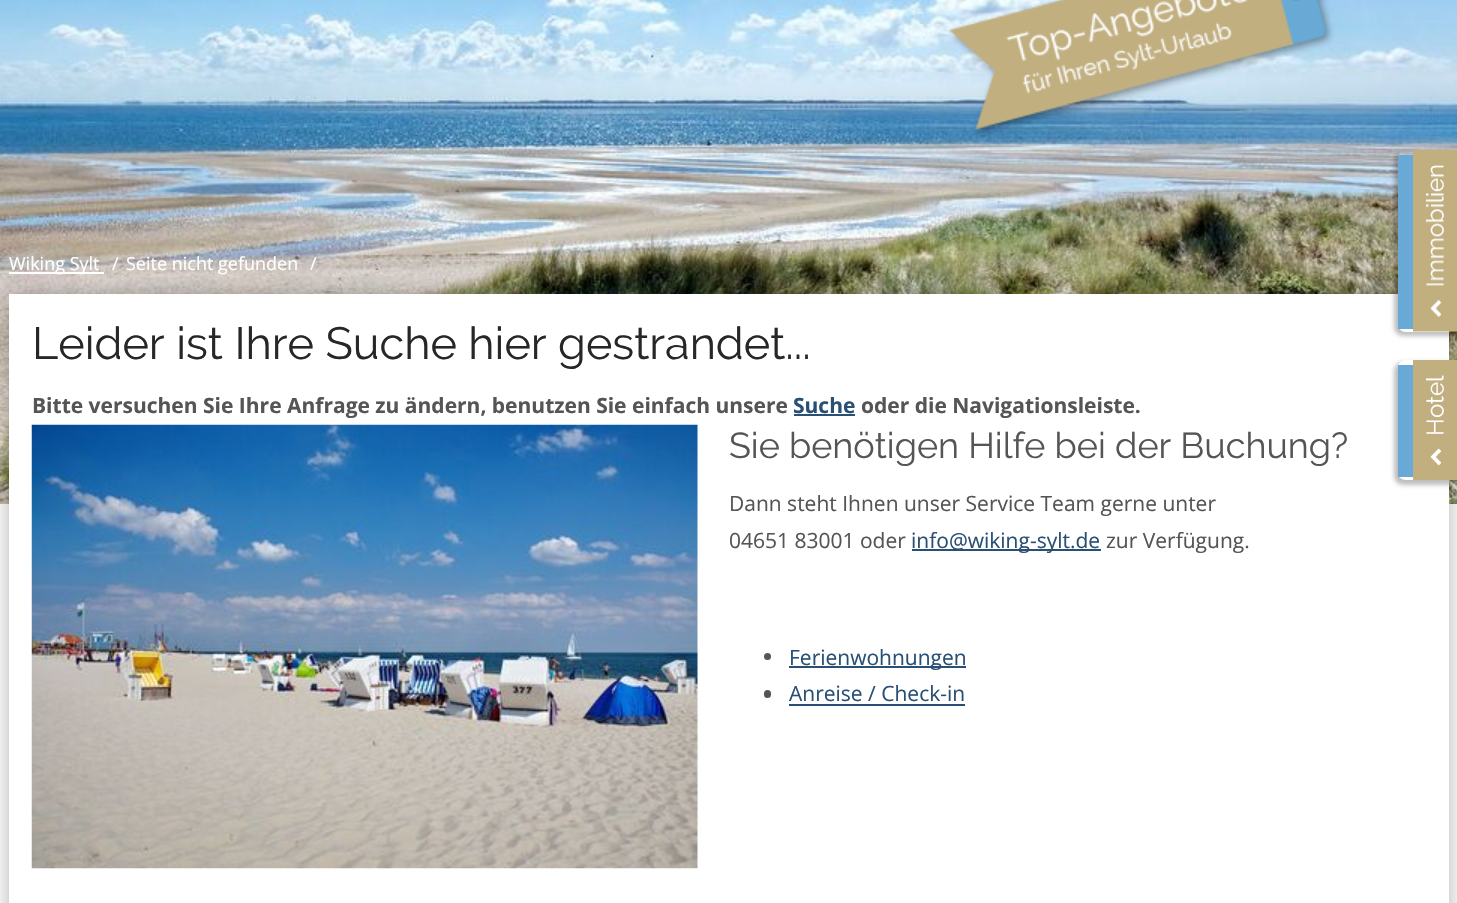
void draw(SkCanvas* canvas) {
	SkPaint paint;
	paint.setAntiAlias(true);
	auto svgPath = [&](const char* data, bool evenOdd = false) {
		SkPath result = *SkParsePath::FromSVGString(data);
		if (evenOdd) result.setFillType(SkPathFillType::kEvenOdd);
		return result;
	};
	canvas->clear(0xffffffff);
	canvas->drawImageRect(SkImages::DeferredFromEncodedData(SkData::MakeFromFileName("img1.png")), SkRect::MakeXYWH(0, 0, 1457, 504), SkSamplingOptions());
	canvas->drawImageRect(SkImages::DeferredFromEncodedData(SkData::MakeFromFileName("img2.png")), SkRect::MakeXYWH(949, 0, 385, 137), SkSamplingOptions());
	paint.setColor(0x4d000000);
	paint.setMaskFilter(SkMaskFilter::MakeBlur(kNormal_SkBlurStyle, 11));
	canvas->drawRect(SkRect::MakeXYWH(9, 294, 1440, 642), paint);
	paint.setMaskFilter(nullptr);
	paint.setColor(0xffffffff);
	canvas->drawRect(SkRect::MakeXYWH(9, 294, 1440, 609), paint);
	canvas->save();
	canvas->clipPath(svgPath("M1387 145H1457V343H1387ZM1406 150H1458V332H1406C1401.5 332 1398 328.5 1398 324V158C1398 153.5 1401.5 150 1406 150Z", true), true);
	paint.setColor(0x40000000);
	paint.setMaskFilter(SkMaskFilter::MakeBlur(kNormal_SkBlurStyle, 2));
	canvas->drawRoundRect(SkRect::MakeXYWH(1394, 152, 63, 184), 9, 9, paint);
	paint.setMaskFilter(nullptr);
	canvas->restore();
	paint.setColor(0xff68a9d5);
	canvas->drawRect(SkRect::MakeXYWH(1398, 155, 15, 174), paint);
	canvas->drawImageRect(SkImages::DeferredFromEncodedData(SkData::MakeFromFileName("img3.png")), SkRect::MakeXYWH(1413, 150, 44, 182), SkSamplingOptions());
	canvas->save();
	canvas->clipPath(svgPath("M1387 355H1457V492H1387ZM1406 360H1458V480H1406C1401.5 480 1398 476.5 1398 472V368C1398 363.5 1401.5 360 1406 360Z", true), true);
	paint.setColor(0x40000000);
	paint.setMaskFilter(SkMaskFilter::MakeBlur(kNormal_SkBlurStyle, 2));
	canvas->drawRoundRect(SkRect::MakeXYWH(1394, 362, 63, 123), 9, 9, paint);
	paint.setMaskFilter(nullptr);
	canvas->restore();
	paint.setColor(0xff68a9d5);
	canvas->drawRect(SkRect::MakeXYWH(1398, 365, 15, 112), paint);
	canvas->drawImageRect(SkImages::DeferredFromEncodedData(SkData::MakeFromFileName("img4.png")), SkRect::MakeXYWH(1413, 360, 44, 120), SkSamplingOptions());
	paint.setColor(0xffffffff);
	canvas->drawRect(SkRect::MakeXYWH(9, 272, 90, 2), paint);
	SkFont f1(fontMgr->matchFamilyStyle("Open Sans", SkFontStyle::Normal()), 18);
	f1.setSubpixel(true);
	canvas->drawString("Wiking Sylt", 9, 270, f1, paint);
	canvas->drawRect(SkRect::MakeXYWH(99, 272, 5, 2), paint);
	canvas->drawString("/", 112, 270, f1, paint);
	canvas->drawString("Seite nicht gefunden", 126, 270, f1, paint);
	canvas->drawString("/", 310, 270, f1, paint);
	SkFont f2(fontMgr->matchFamilyStyle("Raleway", SkFontStyle::Normal()), 45);
	f2.setSubpixel(true);
	paint.setColor(0xff272727);
	canvas->drawString("Leider ist Ihre Suche hier gestrandet...", 32, 359, f2, paint);
	SkFont f3(fontMgr->matchFamilyStyle("Open Sans", SkFontStyle::Bold()), 21);
	f3.setSubpixel(true);
	paint.setColor(0xff555555);
	canvas->drawString("Bitte versuchen Sie Ihre Anfrage zu ändern, benutzen Sie einfach unsere", 32, 413, f3, paint);
	paint.setColor(0xff294f74);
	canvas->drawString("Suche", 793, 413, f3, paint);
	canvas->drawRect(SkRect::MakeXYWH(794, 414, 61, 2), paint);
	paint.setColor(0xff555555);
	canvas->drawString("oder die Navigationsleiste.", 861, 413, f3, paint);
	canvas->drawImageRect(SkImages::DeferredFromEncodedData(SkData::MakeFromFileName("img5.png")), SkRect::MakeXYWH(31, 424, 667, 445), SkSamplingOptions());
	SkFont f4(fontMgr->matchFamilyStyle("Raleway", SkFontStyle::Normal()), 36);
	f4.setSubpixel(true);
	canvas->drawString("Sie benötigen Hilfe bei der Buchung?", 729, 458, f4, paint);
	SkFont f5(fontMgr->matchFamilyStyle("Open Sans", SkFontStyle::Normal()), 21);
	f5.setSubpixel(true);
	canvas->drawString("Dann steht Ihnen unser Service Team gerne unter", 729, 511, f5, paint);
	canvas->drawString("04651 83001 oder", 729, 548, f5, paint);
	paint.setColor(0xff294f74);
	canvas->drawRect(SkRect::MakeXYWH(912, 549, 189, 2), paint);
	canvas->drawString("info@wiking-sylt.de", 911, 548, f5, paint);
	paint.setColor(0xff555555);
	canvas->drawString("zur Verfügung.", 1106, 548, f5, paint);
	canvas->drawCircle(767.5, 656.5, 3.5, paint);
	paint.setColor(0xff294f74);
	canvas->drawRect(SkRect::MakeXYWH(789, 666, 177, 2), paint);
	canvas->drawString("Ferienwohnungen", 789, 665, f5, paint);
	paint.setColor(0xff555555);
	canvas->drawRoundRect(SkRect::MakeXYWH(764, 690, 7, 8), 3.5, 3.5, paint);
	paint.setColor(0xff294f74);
	canvas->drawString("Anreise / Check-in", 789, 701, f5, paint);
	canvas->drawRect(SkRect::MakeXYWH(789, 704, 176, 2), paint);
}
